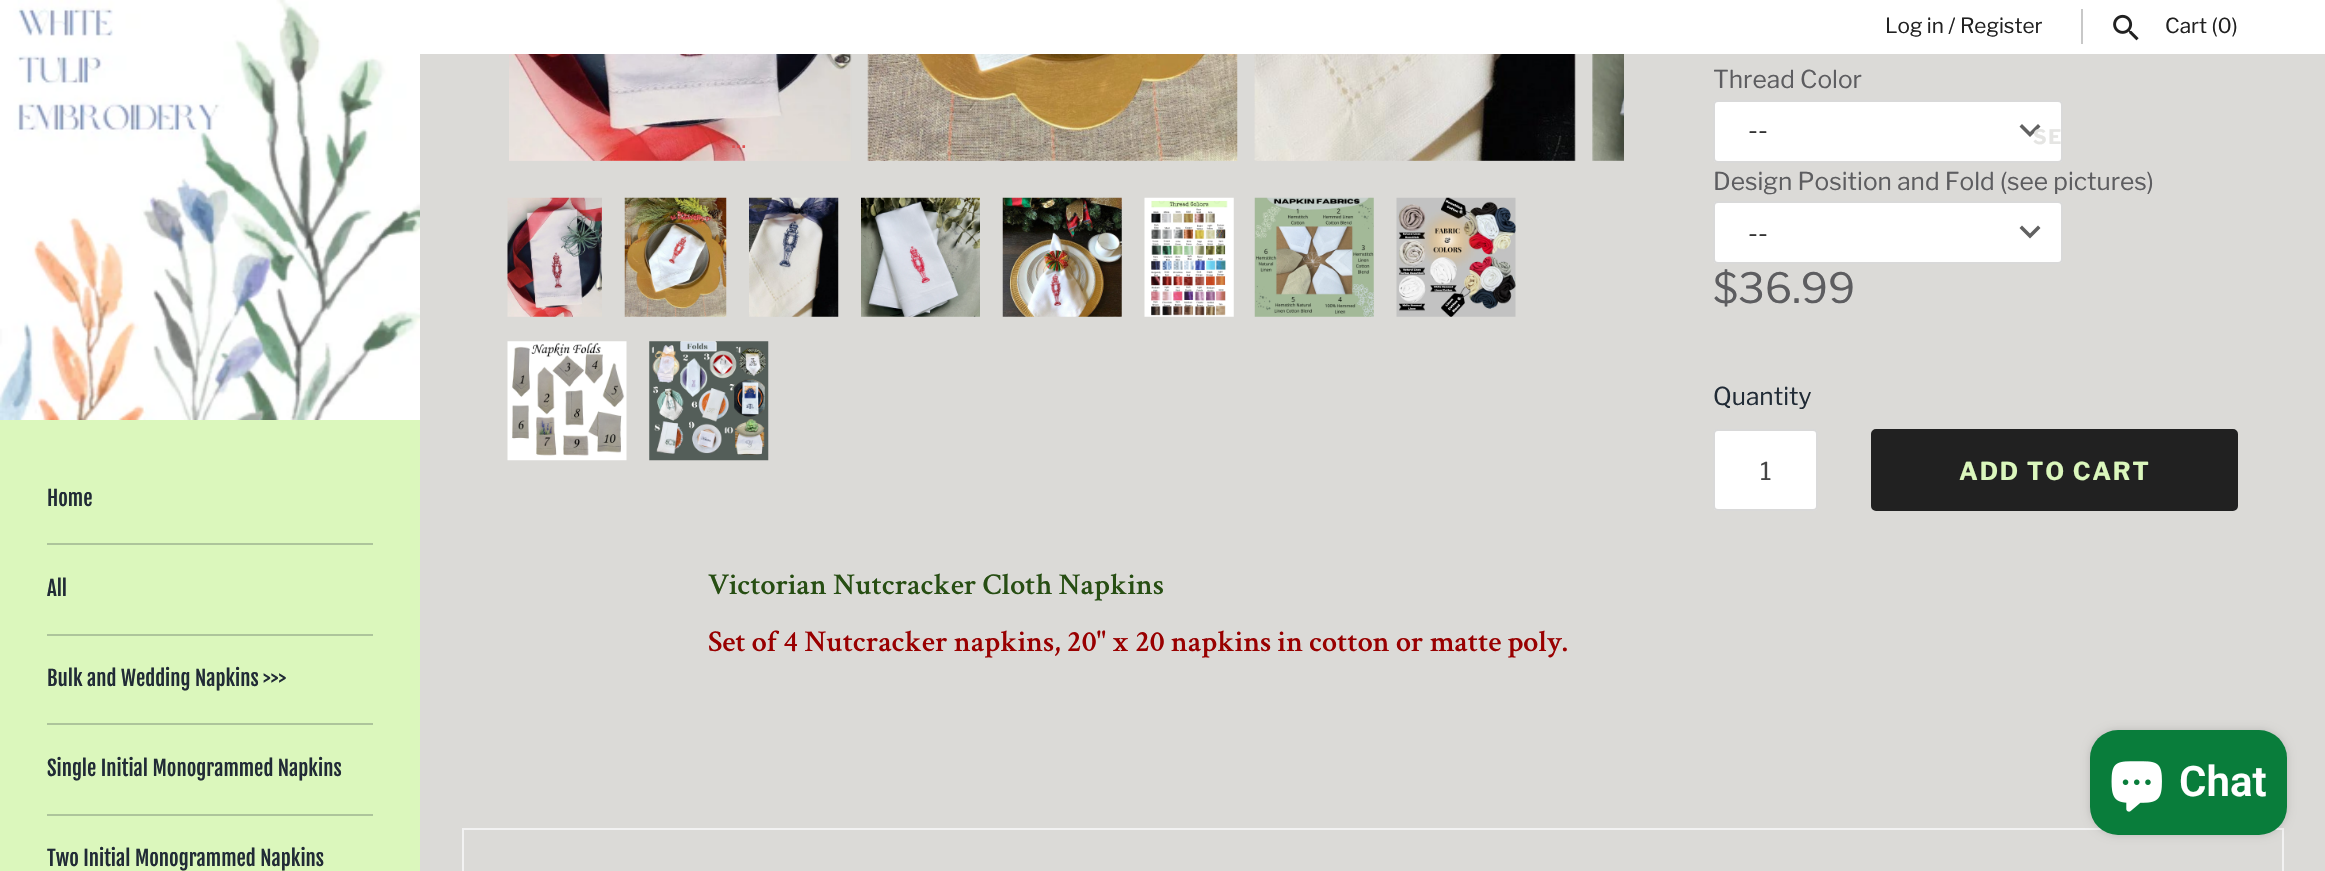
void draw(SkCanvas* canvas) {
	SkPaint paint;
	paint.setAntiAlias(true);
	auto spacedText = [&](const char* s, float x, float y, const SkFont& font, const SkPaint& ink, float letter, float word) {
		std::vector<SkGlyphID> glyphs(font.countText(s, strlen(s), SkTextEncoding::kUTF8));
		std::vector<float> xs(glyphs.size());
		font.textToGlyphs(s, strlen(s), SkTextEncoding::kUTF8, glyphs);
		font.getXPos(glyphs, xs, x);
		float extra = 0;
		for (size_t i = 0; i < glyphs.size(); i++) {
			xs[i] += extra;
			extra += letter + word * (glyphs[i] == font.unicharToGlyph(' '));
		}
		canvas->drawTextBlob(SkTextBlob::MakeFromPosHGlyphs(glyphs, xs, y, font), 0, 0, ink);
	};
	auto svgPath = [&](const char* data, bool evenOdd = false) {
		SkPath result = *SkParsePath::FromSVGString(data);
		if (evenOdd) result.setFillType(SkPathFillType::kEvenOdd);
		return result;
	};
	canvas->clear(0xffdbdad7);
	paint.setColor(0xffffffff);
	canvas->drawRect(SkRect::MakeXYWH(420, 0, 1905, 54), paint);
	SkFont f1(fontMgr->matchFamilyStyle("Libre Franklin", SkFontStyle::Normal()), 20.75);
	f1.setSubpixel(true);
	paint.setColor(0xff212121);
	canvas->drawString("Log in / Register", 1885, 33, f1, paint);
	paint.setColor(0xffc8c8c8);
	canvas->drawRect(SkRect::MakeXYWH(2081, 9, 2, 35), paint);
	canvas->drawImageRect(SkImages::DeferredFromEncodedData(SkData::MakeFromFileName("img1.png")), SkRect::MakeXYWH(2113, 14, 26, 27), SkSamplingOptions());
	paint.setColor(0xff212121);
	canvas->drawString("Cart (0)", 2165, 33, f1, paint);
	paint.setColor(0xffffffff);
	canvas->drawRoundRect(SkRect::MakeXYWH(1713, 100, 350, 63), 5, 5, paint);
	paint.setColor(0xff616161);
	canvas->drawPath(svgPath("M2022 124L2030 132L2038 124L2040.5 126.5L2030 137L2019.5 126.5Z"), paint);
	paint.setStroke(true);
	paint.setStrokeWidth(2);
	paint.setColor(0x26000000);
	canvas->drawRoundRect(SkRect::MakeXYWH(1714, 101, 348, 61), 4, 4, paint);
	SkFont f2(fontMgr->matchFamilyStyle("Libre Franklin", SkFontStyle::Bold()), 20);
	f2.setSubpixel(true);
	paint.setStroke(false);
	paint.setColor(0xffe5e5e3);
	spacedText("SE", 2033, 144, f2, paint, 1.75, 0);
	canvas->drawImageRect(SkImages::DeferredFromEncodedData(SkData::MakeFromFileName("img3.png")), SkRect::MakeXYWH(509, 54, 343, 107), SkSamplingOptions());
	SkFont f3(fontMgr->matchFamilyStyle("Libre Franklin", SkFontStyle::Normal()), 24.5);
	f3.setSubpixel(true);
	paint.setColor(0xffdf5252);
	canvas->drawString("...", 731, 148, f3, paint);
	paint.setColor(0xffdbf7bc);
	canvas->drawRect(SkRect::MakeXYWH(0, 420, 420, 451), paint);
	canvas->drawImageRect(SkImages::DeferredFromEncodedData(SkData::MakeFromFileName("img2.png")), SkRect::MakeXYWH(0, 0, 420, 420), SkSamplingOptions());
	paint.setColor(0xffadc49b);
	canvas->drawRect(SkRect::MakeXYWH(47, 543, 326, 2), paint);
	SkFont f4(fontMgr->matchFamilyStyle("Fjalla One", SkFontStyle::Normal()), 20.75);
	f4.setSubpixel(true);
	paint.setColor(0xff212b36);
	canvas->drawString("Home", 47, 506, f4, paint);
	paint.setColor(0xffadc49b);
	canvas->drawRect(SkRect::MakeXYWH(47, 634, 326, 2), paint);
	paint.setColor(0xff212b36);
	canvas->drawString("All", 47, 596, f4, paint);
	paint.setColor(0xffadc49b);
	canvas->drawRect(SkRect::MakeXYWH(47, 723, 326, 2), paint);
	paint.setColor(0xff212b36);
	canvas->drawString("Bulk and Wedding Napkins >>>", 47, 686, f4, paint);
	paint.setColor(0xffadc49b);
	canvas->drawRect(SkRect::MakeXYWH(47, 814, 326, 2), paint);
	paint.setColor(0xff212b36);
	canvas->drawString("Single Initial Monogrammed Napkins", 47, 776, f4, paint);
	canvas->drawString("Two Initial Monogrammed Napkins", 47, 866, f4, paint);
	canvas->drawImageRect(SkImages::DeferredFromEncodedData(SkData::MakeFromFileName("img4.png")), SkRect::MakeXYWH(867, 54, 371, 107), SkSamplingOptions());
	canvas->drawImageRect(SkImages::DeferredFromEncodedData(SkData::MakeFromFileName("img5.png")), SkRect::MakeXYWH(1254, 54, 322, 107), SkSamplingOptions());
	canvas->drawImageRect(SkImages::DeferredFromEncodedData(SkData::MakeFromFileName("img6.png")), SkRect::MakeXYWH(1592, 54, 32, 107), SkSamplingOptions());
	canvas->drawImageRect(SkImages::DeferredFromEncodedData(SkData::MakeFromFileName("img7.png")), SkRect::MakeXYWH(507, 197, 95, 120), SkSamplingOptions());
	canvas->drawImageRect(SkImages::DeferredFromEncodedData(SkData::MakeFromFileName("img8.png")), SkRect::MakeXYWH(624, 197, 103, 120), SkSamplingOptions());
	canvas->drawImageRect(SkImages::DeferredFromEncodedData(SkData::MakeFromFileName("img9.png")), SkRect::MakeXYWH(749, 197, 90, 120), SkSamplingOptions());
	canvas->drawImageRect(SkImages::DeferredFromEncodedData(SkData::MakeFromFileName("img10.png")), SkRect::MakeXYWH(861, 197, 119, 120), SkSamplingOptions());
	canvas->drawImageRect(SkImages::DeferredFromEncodedData(SkData::MakeFromFileName("img11.png")), SkRect::MakeXYWH(1002, 197, 120, 120), SkSamplingOptions());
	canvas->drawImageRect(SkImages::DeferredFromEncodedData(SkData::MakeFromFileName("img12.png")), SkRect::MakeXYWH(1144, 197, 90, 120), SkSamplingOptions());
	canvas->drawImageRect(SkImages::DeferredFromEncodedData(SkData::MakeFromFileName("img13.png")), SkRect::MakeXYWH(1254, 197, 120, 120), SkSamplingOptions());
	canvas->drawImageRect(SkImages::DeferredFromEncodedData(SkData::MakeFromFileName("img14.png")), SkRect::MakeXYWH(1396, 197, 120, 120), SkSamplingOptions());
	canvas->drawImageRect(SkImages::DeferredFromEncodedData(SkData::MakeFromFileName("img15.png")), SkRect::MakeXYWH(507, 341, 120, 120), SkSamplingOptions());
	canvas->drawImageRect(SkImages::DeferredFromEncodedData(SkData::MakeFromFileName("img16.png")), SkRect::MakeXYWH(649, 341, 120, 120), SkSamplingOptions());
	paint.setColor(0xff5d5d60);
	canvas->drawString("Thread Color", 1713, 88, f3, paint);
	SkFont f5(fontMgr->matchFamilyStyle("Libre Franklin", SkFontStyle::Normal()), 26);
	f5.setSubpixel(true);
	paint.setColor(0xff333333);
	canvas->drawString("--", 1748, 139, f5, paint);
	paint.setColor(0xff5d5d60);
	canvas->drawString("Design Position and Fold (see pictures)", 1713, 190, f3, paint);
	paint.setColor(0xffffffff);
	canvas->drawRoundRect(SkRect::MakeXYWH(1713, 201, 350, 63), 5, 5, paint);
	paint.setColor(0xff616161);
	canvas->drawPath(svgPath("M2022 225.5L2030 233.5L2038 225.5L2040.5 228L2030 238.5L2019.5 228Z"), paint);
	paint.setStroke(true);
	paint.setColor(0x26000000);
	canvas->drawRoundRect(SkRect::MakeXYWH(1714, 202, 348, 61), 4, 4, paint);
	paint.setStroke(false);
	paint.setColor(0xff333333);
	canvas->drawString("--", 1748, 242, f5, paint);
	SkFont f6(fontMgr->matchFamilyStyle("Libre Franklin", SkFontStyle::Normal()), 41.5);
	f6.setSubpixel(true);
	paint.setColor(0xff5d5d60);
	canvas->drawString("$36.99", 1713, 303, f6, paint);
	paint.setColor(0xff212b36);
	canvas->drawString("Quantity", 1713, 405, f3, paint);
	paint.setColor(0xffffffff);
	canvas->drawRoundRect(SkRect::MakeXYWH(1713, 429, 105, 82), 5, 5, paint);
	paint.setStroke(true);
	paint.setColor(0x26000000);
	canvas->drawRoundRect(SkRect::MakeXYWH(1714, 430, 103, 80), 4, 4, paint);
	paint.setStroke(false);
	paint.setColor(0xff444444);
	canvas->drawString("1", 1760, 480, f3, paint);
	paint.setColor(0xff212121);
	canvas->drawRoundRect(SkRect::MakeXYWH(1872, 430, 365, 80), 4, 4, paint);
	paint.setStroke(true);
	canvas->drawRoundRect(SkRect::MakeXYWH(1872, 430, 365, 80), 4, 4, paint);
	SkFont f7(fontMgr->matchFamilyStyle("Libre Franklin", SkFontStyle::Bold()), 24.5);
	f7.setSubpixel(true);
	paint.setStroke(false);
	paint.setColor(0xffdbf7bc);
	spacedText("ADD TO CART", 1959, 480, f7, paint, 1.75, 0);
	SkFont f8(fontMgr->matchFamilyStyle("Crimson Text", SkFontStyle(600, SkFontStyle::kNormal_Width, SkFontStyle::kUpright_Slant)), 30.15);
	f8.setSubpixel(true);
	paint.setColor(0xff274e13);
	canvas->drawString("Victorian Nutcracker Cloth Napkins", 708, 594, f8, paint);
	paint.setColor(0xff990000);
	canvas->drawString("Set of 4 Nutcracker napkins, 20\" x 20 napkins in cotton or matte poly.", 708, 651, f8, paint);
	paint.setStroke(true);
	paint.setColor(0xfff2f2f2);
	canvas->drawRect(SkRect::MakeXYWH(463, 829, 1820, 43), paint);
	paint.setStroke(false);
	paint.setColor(0x26000000);
	paint.setMaskFilter(SkMaskFilter::MakeBlur(kNormal_SkBlurStyle, 4.5));
	canvas->drawRoundRect(SkRect::MakeXYWH(2090, 730, 197, 105), 28, 28, paint);
	paint.setMaskFilter(nullptr);
	paint.setColor(0xff097d3b);
	canvas->drawRoundRect(SkRect::MakeXYWH(2090, 730, 197, 105), 28, 28, paint);
	canvas->drawImageRect(SkImages::DeferredFromEncodedData(SkData::MakeFromFileName("img17.png")), SkRect::MakeXYWH(2111, 761, 51, 51), SkSamplingOptions());
	SkFont f9(fontMgr->matchFamilyStyle("Roboto", SkFontStyle(600, SkFontStyle::kNormal_Width, SkFontStyle::kUpright_Slant)), 42);
	f9.setSubpixel(true);
	paint.setColor(0xffffffff);
	canvas->drawString("Chat", 2179, 796, f9, paint);
}
